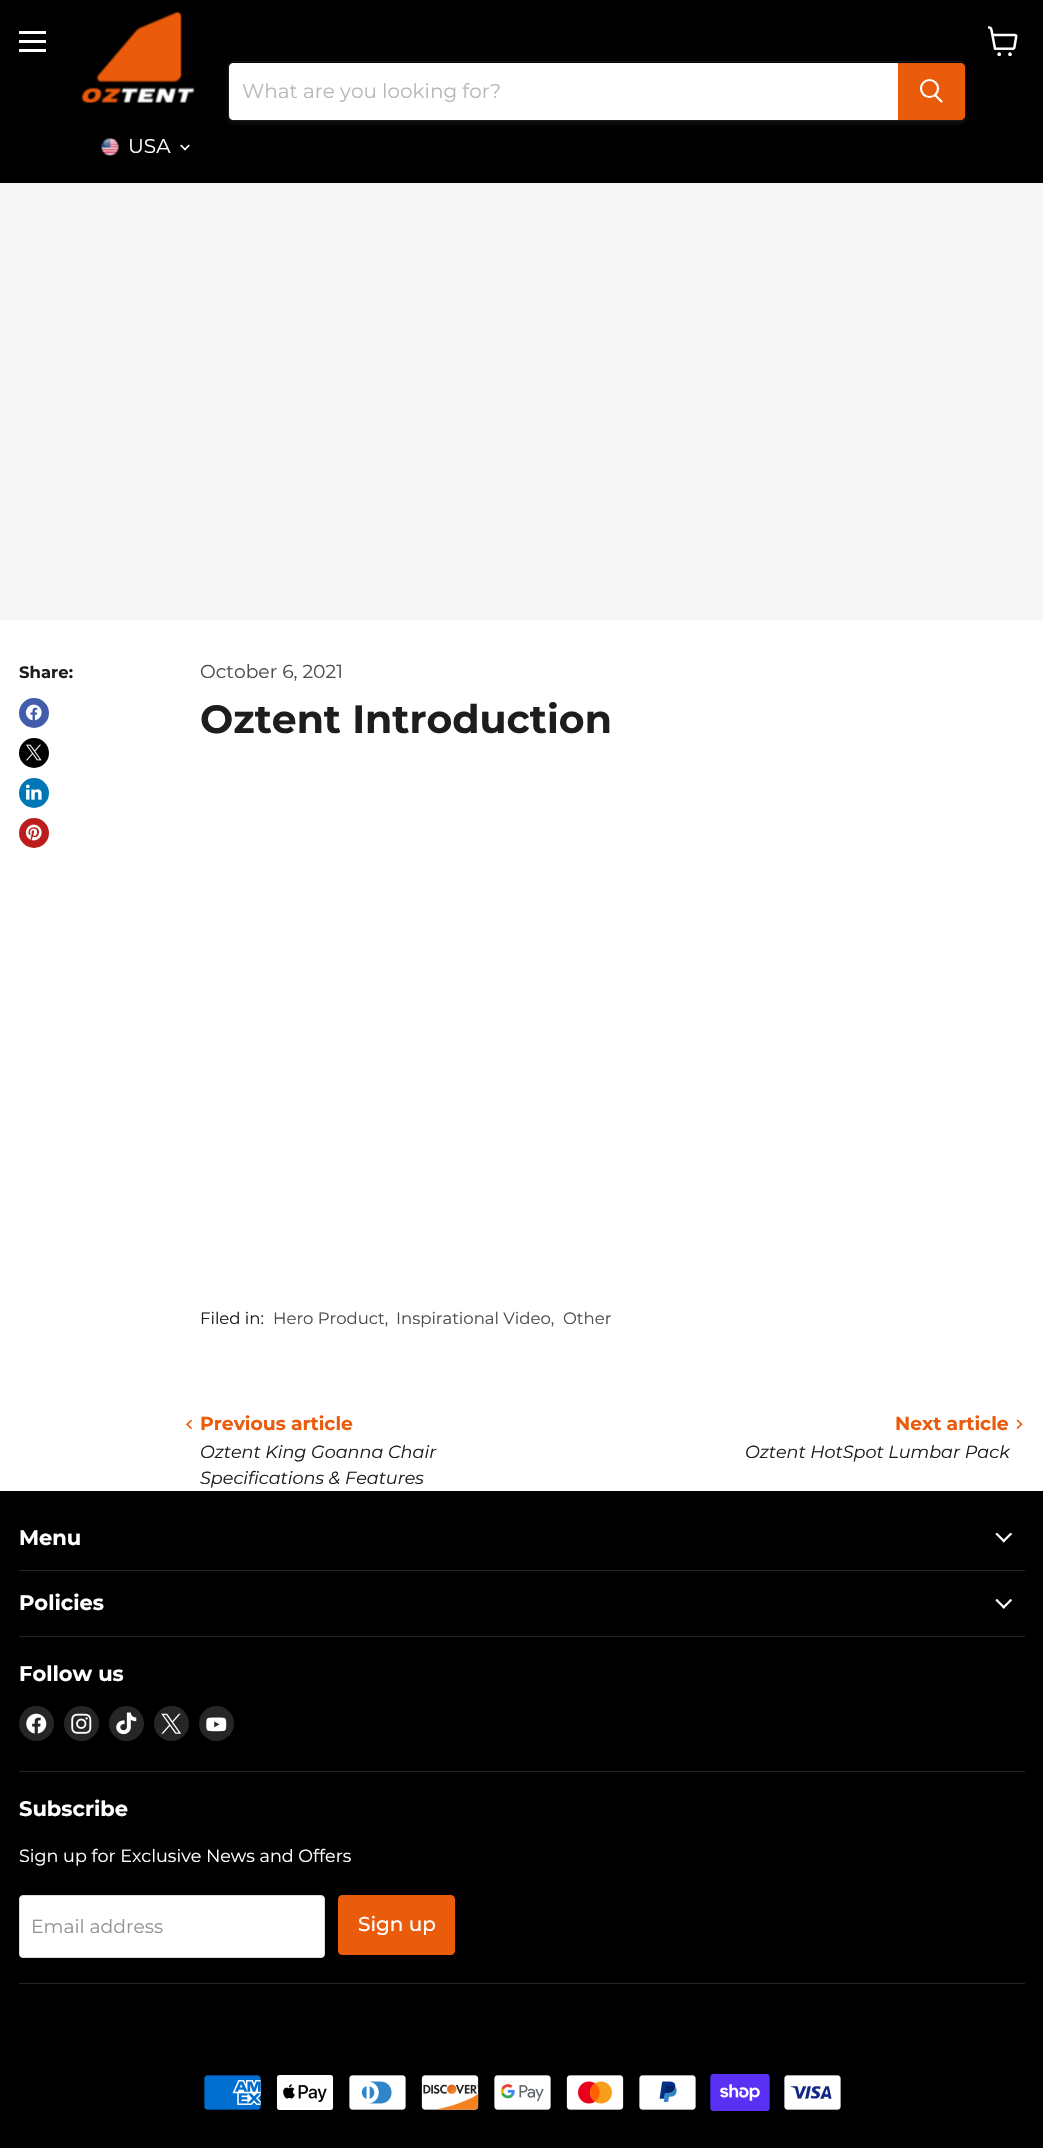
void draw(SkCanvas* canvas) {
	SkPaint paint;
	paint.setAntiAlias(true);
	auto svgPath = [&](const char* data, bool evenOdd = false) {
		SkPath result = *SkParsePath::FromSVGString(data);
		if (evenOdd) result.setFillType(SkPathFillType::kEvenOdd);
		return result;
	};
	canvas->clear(0xffffffff);
	paint.setColor(0xff000000);
	canvas->drawRect(SkRect::MakeXYWH(0, 0, 1043, 183), paint);
	paint.setColor(0xffffffff);
	canvas->drawRect(SkRect::MakeXYWH(19, 31, 27, 3), paint);
	canvas->drawRect(SkRect::MakeXYWH(19, 40, 27, 3), paint);
	canvas->drawRect(SkRect::MakeXYWH(19, 49, 27, 3), paint);
	canvas->drawImageRect(SkImages::DeferredFromEncodedData(SkData::MakeFromFileName("img1.png")), SkRect::MakeXYWH(988, 26, 30, 30), SkSamplingOptions());
	paint.setColor(0x1c808080);
	paint.setMaskFilter(SkMaskFilter::MakeBlur(kNormal_SkBlurStyle, 2));
	canvas->drawRoundRect(SkRect::MakeXYWH(228, 64, 738, 60), 5, 5, paint);
	paint.setMaskFilter(nullptr);
	paint.setStroke(true);
	paint.setStrokeWidth(1);
	paint.setColor(0xff1a1a1a);
	canvas->drawRoundRect(SkRect::MakeXYWH(228.5, 61.5, 737, 59), 4.5, 4.5, paint);
	paint.setStroke(false);
	paint.setColor(0xffffffff);
	canvas->drawPath(svgPath("M233 63H898V120H233C231 120 229 118 229 116V67C229 65 231 63 233 63Z"), paint);
	SkFont f1(fontMgr->matchFamilyStyle("Montserrat", SkFontStyle::Normal()), 20);
	f1.setSubpixel(true);
	paint.setColor(0xffb8b8b8);
	canvas->drawString("What are you looking for?", 242, 98, f1, paint);
	paint.setColor(0xffea5b0c);
	canvas->drawPath(svgPath("M898.5 63.5H961C963 63.5 964.5 65 964.5 67V116C964.5 118 963 119.5 961 119.5H898.5Z"), paint);
	paint.setStroke(true);
	canvas->drawPath(svgPath("M898.5 63.5H961C963 63.5 964.5 65 964.5 67V116C964.5 118 963 119.5 961 119.5H898.5Z"), paint);
	paint.setStrokeWidth(2.2);
	paint.setStrokeCap(SkPaint::kRound_Cap);
	paint.setColor(0xffffffff);
	canvas->drawPath(svgPath("M941.5 101.5L935.5 95.5"), paint);
	paint.setStrokeCap(SkPaint::kButt_Cap);
	canvas->drawCircle(929.5, 88.5, 8.5, paint);
	canvas->drawImageRect(SkImages::DeferredFromEncodedData(SkData::MakeFromFileName("img2.png")), SkRect::MakeXYWH(81, 12, 114, 91), SkSamplingOptions());
	canvas->drawImageRect(SkImages::DeferredFromEncodedData(SkData::MakeFromFileName("img3.png")), SkRect::MakeXYWH(100, 137, 19, 19), SkSamplingOptions());
	paint.setStroke(false);
	canvas->drawString("USA", 128, 153, f1, paint);
	canvas->drawImageRect(SkImages::DeferredFromEncodedData(SkData::MakeFromFileName("img4.png")), SkRect::MakeXYWH(180, 144, 10, 7), SkSamplingOptions());
	paint.setColor(0xfff6f6f6);
	canvas->drawRect(SkRect::MakeXYWH(0, 183, 1043, 437), paint);
	SkFont f2(fontMgr->matchFamilyStyle("Montserrat", SkFontStyle::Bold()), 16.5);
	f2.setSubpixel(true);
	paint.setColor(0xff1d1d1d);
	canvas->drawString("Share:", 19, 678, f2, paint);
	paint.setColor(0xff425dab);
	canvas->drawCircle(34, 713, 15, paint);
	canvas->drawImageRect(SkImages::DeferredFromEncodedData(SkData::MakeFromFileName("img5.png")), SkRect::MakeXYWH(25, 704, 17, 17), SkSamplingOptions());
	paint.setColor(0xff000000);
	canvas->drawCircle(34, 753, 15, paint);
	canvas->drawImageRect(SkImages::DeferredFromEncodedData(SkData::MakeFromFileName("img6.png")), SkRect::MakeXYWH(26, 744, 16, 17), SkSamplingOptions());
	paint.setColor(0xff0077b5);
	canvas->drawCircle(34, 793, 15, paint);
	canvas->drawImageRect(SkImages::DeferredFromEncodedData(SkData::MakeFromFileName("img7.png")), SkRect::MakeXYWH(25, 784, 17, 16), SkSamplingOptions());
	paint.setColor(0xffbd1c1c);
	canvas->drawCircle(34, 833, 15, paint);
	canvas->drawImageRect(SkImages::DeferredFromEncodedData(SkData::MakeFromFileName("img8.png")), SkRect::MakeXYWH(25, 824, 17, 17), SkSamplingOptions());
	SkFont f3(fontMgr->matchFamilyStyle("Montserrat", SkFontStyle::Normal()), 18.75);
	f3.setSubpixel(true);
	paint.setColor(0xff4d4d4d);
	canvas->drawString("October 6, 2021", 200, 678, f3, paint);
	SkFont f4(fontMgr->matchFamilyStyle("Montserrat", SkFontStyle::Bold()), 39.4);
	f4.setSubpixel(true);
	paint.setColor(0xff1d1d1d);
	canvas->drawString("Oztent Introduction", 200, 733, f4, paint);
	SkFont f5(fontMgr->matchFamilyStyle("Montserrat", SkFontStyle::Normal()), 16.5);
	f5.setSubpixel(true);
	canvas->drawString("Filed in:", 200, 1324, f5, paint);
	paint.setColor(0xff4d4d4d);
	canvas->drawString("Hero Product,", 273, 1324, f5, paint);
	canvas->drawString("Inspirational Video,", 396, 1324, f5, paint);
	canvas->drawString("Other", 563, 1324, f5, paint);
	canvas->drawImageRect(SkImages::DeferredFromEncodedData(SkData::MakeFromFileName("img9.png")), SkRect::MakeXYWH(186, 1419, 6, 10), SkSamplingOptions());
	SkFont f6(fontMgr->matchFamilyStyle("Montserrat", SkFontStyle::Bold()), 18.75);
	f6.setSubpixel(true);
	paint.setColor(0xffea5b0c);
	canvas->drawString("Previous article", 200, 1430, f6, paint);
	SkFont f7(fontMgr->matchFamilyStyle("Montserrat", SkFontStyle::Italic()), 17.6);
	f7.setSubpixel(true);
	paint.setColor(0xff1d1d1d);
	canvas->drawString("Oztent King Goanna Chair", 200, 1458, f7, paint);
	canvas->drawString("Specifications & Features", 200, 1484, f7, paint);
	paint.setColor(0xffea5b0c);
	canvas->drawString("Next article", 895, 1430, f6, paint);
	paint.setColor(0xff1d1d1d);
	canvas->drawString("Oztent HotSpot Lumbar Pack", 745, 1458, f7, paint);
	canvas->drawImageRect(SkImages::DeferredFromEncodedData(SkData::MakeFromFileName("img10.png")), SkRect::MakeXYWH(1016, 1419, 7, 10), SkSamplingOptions());
	paint.setColor(0xff000000);
	canvas->drawRect(SkRect::MakeXYWH(0, 1491, 1043, 657), paint);
	paint.setColor(0xff262626);
	canvas->drawRect(SkRect::MakeXYWH(19, 1570, 1006, 1), paint);
	SkFont f8(fontMgr->matchFamilyStyle("Montserrat", SkFontStyle::Bold()), 21);
	f8.setSubpixel(true);
	paint.setColor(0xffffffff);
	canvas->drawString("Menu", 19, 1545, f8, paint);
	canvas->drawImageRect(SkImages::DeferredFromEncodedData(SkData::MakeFromFileName("img11.png")), SkRect::MakeXYWH(995, 1533, 18, 10), SkSamplingOptions());
	paint.setColor(0xff262626);
	canvas->drawRect(SkRect::MakeXYWH(19, 1636, 1006, 1), paint);
	paint.setColor(0xffffffff);
	canvas->drawString("Policies", 19, 1610, f8, paint);
	canvas->drawImageRect(SkImages::DeferredFromEncodedData(SkData::MakeFromFileName("img12.png")), SkRect::MakeXYWH(995, 1599, 18, 10), SkSamplingOptions());
	paint.setColor(0xff262626);
	canvas->drawRect(SkRect::MakeXYWH(19, 1771, 1006, 1), paint);
	paint.setColor(0xffffffff);
	canvas->drawString("Follow us", 19, 1681, f8, paint);
	paint.setColor(0xff262626);
	canvas->drawCircle(36.5, 1723.5, 17.5, paint);
	canvas->drawImageRect(SkImages::DeferredFromEncodedData(SkData::MakeFromFileName("img13.png")), SkRect::MakeXYWH(26, 1713, 21, 21), SkSamplingOptions());
	canvas->drawCircle(81.5, 1723.5, 17.5, paint);
	canvas->drawImageRect(SkImages::DeferredFromEncodedData(SkData::MakeFromFileName("img14.png")), SkRect::MakeXYWH(71, 1713, 21, 21), SkSamplingOptions());
	canvas->drawCircle(126.5, 1723.5, 17.5, paint);
	canvas->drawImageRect(SkImages::DeferredFromEncodedData(SkData::MakeFromFileName("img15.png")), SkRect::MakeXYWH(116, 1712, 21, 23), SkSamplingOptions());
	canvas->drawCircle(171.5, 1723.5, 17.5, paint);
	canvas->drawImageRect(SkImages::DeferredFromEncodedData(SkData::MakeFromFileName("img16.png")), SkRect::MakeXYWH(161, 1713, 21, 21), SkSamplingOptions());
	canvas->drawCircle(216.5, 1723.5, 17.5, paint);
	canvas->drawImageRect(SkImages::DeferredFromEncodedData(SkData::MakeFromFileName("img17.png")), SkRect::MakeXYWH(206, 1717, 21, 15), SkSamplingOptions());
	canvas->drawRect(SkRect::MakeXYWH(19, 1983, 1006, 1), paint);
	paint.setColor(0xffffffff);
	canvas->drawString("Subscribe", 19, 1816, f8, paint);
	SkFont f9(fontMgr->matchFamilyStyle("Montserrat", SkFontStyle::Normal()), 17.6);
	f9.setSubpixel(true);
	canvas->drawString("Sign up for Exclusive News and Offers", 19, 1862, f9, paint);
	canvas->drawRoundRect(SkRect::MakeXYWH(19.5, 1895.5, 305, 62), 3.5, 3.5, paint);
	paint.setStroke(true);
	paint.setStrokeWidth(1);
	paint.setColor(0xffdddddd);
	canvas->drawRoundRect(SkRect::MakeXYWH(19.5, 1895.5, 305, 62), 3.5, 3.5, paint);
	paint.setStroke(false);
	paint.setColor(0xff949494);
	canvas->drawString("Email address", 31, 1933, f3, paint);
	paint.setColor(0xffea5b0c);
	canvas->drawRoundRect(SkRect::MakeXYWH(338.5, 1895.5, 116, 59), 3.5, 3.5, paint);
	paint.setStroke(true);
	canvas->drawRoundRect(SkRect::MakeXYWH(338.5, 1895.5, 116, 59), 3.5, 3.5, paint);
	SkFont f10(fontMgr->matchFamilyStyle("Montserrat", SkFontStyle(500, SkFontStyle::kNormal_Width, SkFontStyle::kUpright_Slant)), 20);
	f10.setSubpixel(true);
	paint.setStroke(false);
	paint.setColor(0xffffffff);
	canvas->drawString("Sign up", 358, 1931, f10, paint);
	canvas->drawImageRect(SkImages::DeferredFromEncodedData(SkData::MakeFromFileName("img18.png")), SkRect::MakeXYWH(204, 2075, 57, 35), SkSamplingOptions());
	canvas->drawImageRect(SkImages::DeferredFromEncodedData(SkData::MakeFromFileName("img19.png")), SkRect::MakeXYWH(276, 2075, 58, 35), SkSamplingOptions());
	canvas->drawImageRect(SkImages::DeferredFromEncodedData(SkData::MakeFromFileName("img20.png")), SkRect::MakeXYWH(349, 2075, 57, 35), SkSamplingOptions());
	canvas->drawImageRect(SkImages::DeferredFromEncodedData(SkData::MakeFromFileName("img21.png")), SkRect::MakeXYWH(421, 2075, 58, 35), SkSamplingOptions());
	canvas->drawImageRect(SkImages::DeferredFromEncodedData(SkData::MakeFromFileName("img22.png")), SkRect::MakeXYWH(494, 2075, 57, 35), SkSamplingOptions());
	canvas->drawImageRect(SkImages::DeferredFromEncodedData(SkData::MakeFromFileName("img23.png")), SkRect::MakeXYWH(566, 2075, 58, 35), SkSamplingOptions());
	canvas->drawImageRect(SkImages::DeferredFromEncodedData(SkData::MakeFromFileName("img24.png")), SkRect::MakeXYWH(639, 2075, 57, 35), SkSamplingOptions());
	canvas->drawImageRect(SkImages::DeferredFromEncodedData(SkData::MakeFromFileName("img25.png")), SkRect::MakeXYWH(710, 2074, 60, 37), SkSamplingOptions());
	canvas->drawImageRect(SkImages::DeferredFromEncodedData(SkData::MakeFromFileName("img26.png")), SkRect::MakeXYWH(784, 2075, 57, 35), SkSamplingOptions());
}
